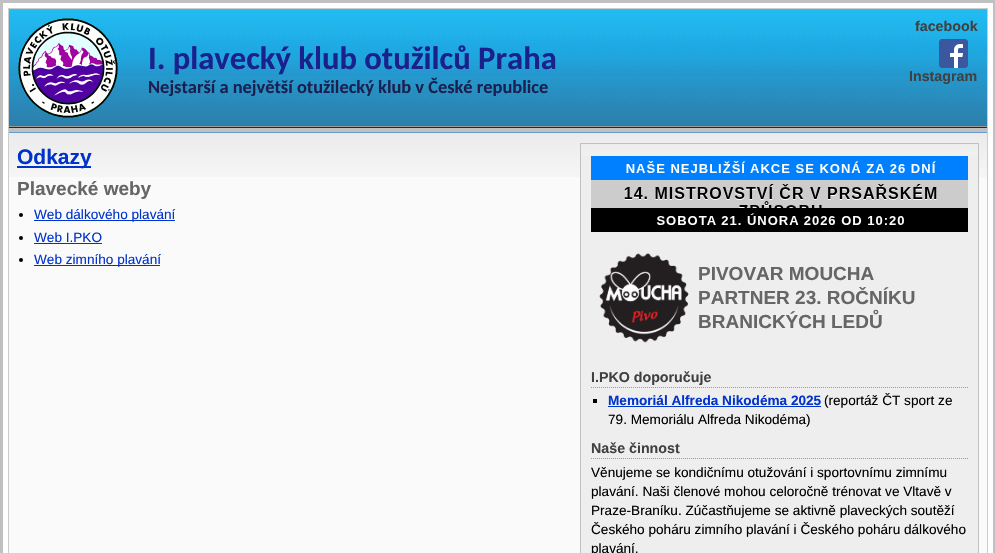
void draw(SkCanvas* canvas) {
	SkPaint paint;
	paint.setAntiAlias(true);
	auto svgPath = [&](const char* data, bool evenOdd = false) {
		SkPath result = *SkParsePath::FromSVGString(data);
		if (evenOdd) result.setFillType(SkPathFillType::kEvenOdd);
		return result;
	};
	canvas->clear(0xffc0c0c0);
	paint.setStroke(true);
	paint.setStrokeWidth(5);
	paint.setColor(0xffffffff);
	canvas->drawRect(SkRect::MakeXYWH(5.5, 5.5, 985, 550), paint);
	paint.setStrokeWidth(1);
	paint.setColor(0xffcccccc);
	canvas->drawRect(SkRect::MakeXYWH(8.5, 8.5, 979, 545), paint);
	canvas->drawImageRect(SkImages::DeferredFromEncodedData(SkData::MakeFromFileName("img1.png")), SkRect::MakeXYWH(9, 10, 978, 116), SkSamplingOptions());
	paint.setStroke(false);
	paint.setColor(0xff999999);
	canvas->drawRect(SkRect::MakeXYWH(9, 9, 978, 1), paint);
	canvas->drawRect(SkRect::MakeXYWH(9, 126, 978, 1), paint);
	canvas->drawImageRect(SkImages::DeferredFromEncodedData(SkData::MakeFromFileName("img2.png")), SkRect::MakeXYWH(18, 18, 100, 100), SkSamplingOptions());
	SkFont f1(fontMgr->matchFamilyStyle("Carlito", SkFontStyle::Bold()), 32.6);
	f1.setSubpixel(true);
	paint.setColor(0xff1a208c);
	canvas->drawString("I. plavecký klub otužilců Praha", 148, 69, f1, paint);
	SkFont f2(fontMgr->matchFamilyStyle("Liberation Sans", SkFontStyle::Bold()), 14.25);
	f2.setSubpixel(true);
	paint.setColor(0xff404040);
	canvas->drawString("facebook", 915, 31, f2, paint);
	canvas->drawImageRect(SkImages::DeferredFromEncodedData(SkData::MakeFromFileName("img3.png")), SkRect::MakeXYWH(939, 39, 29, 29), SkSamplingOptions());
	canvas->drawString("Instagram", 909, 81, f2, paint);
	SkFont f3(fontMgr->matchFamilyStyle("Carlito", SkFontStyle::Bold()), 18.4);
	f3.setSubpixel(true);
	paint.setColor(0xff1a2050);
	canvas->drawString("Nejstarší a největší otužilecký klub v České republice", 148, 93, f3, paint);
	paint.setColor(0xff282828);
	canvas->drawRect(SkRect::MakeXYWH(9, 127, 978, 1), paint);
	paint.setColor(0xff6699cc);
	canvas->drawRect(SkRect::MakeXYWH(9, 132, 978, 1), paint);
	paint.setColor(0xfffafafa);
	canvas->drawRect(SkRect::MakeXYWH(9, 135, 978, 418), paint);
	canvas->drawImageRect(SkImages::DeferredFromEncodedData(SkData::MakeFromFileName("img4.png")), SkRect::MakeXYWH(9, 133, 978, 44), SkSamplingOptions());
	paint.setColor(0xff0033cc);
	canvas->drawRect(SkRect::MakeXYWH(17, 166, 74, 2), paint);
	SkFont f4(fontMgr->matchFamilyStyle("Liberation Sans", SkFontStyle::Bold()), 21);
	f4.setSubpixel(true);
	canvas->drawString("Odkazy", 17, 164, f4, paint);
	SkFont f5(fontMgr->matchFamilyStyle("Liberation Sans", SkFontStyle::Bold()), 19);
	f5.setSubpixel(true);
	paint.setColor(0xff666666);
	canvas->drawString("Plavecké weby", 17, 195, f5, paint);
	paint.setColor(0xff000000);
	canvas->drawCircle(21, 215, 2, paint);
	paint.setColor(0xff0033cc);
	canvas->drawRect(SkRect::MakeXYWH(34, 220, 141, 1), paint);
	SkFont f6(fontMgr->matchFamilyStyle("Liberation Sans", SkFontStyle::Normal()), 13.6);
	f6.setSubpixel(true);
	canvas->drawString("Web dálkového plavání", 34, 219, f6, paint);
	paint.setColor(0xff000000);
	canvas->drawCircle(21, 238, 2, paint);
	paint.setColor(0xff0033cc);
	canvas->drawString("Web I.PKO", 34, 242, f6, paint);
	canvas->drawRect(SkRect::MakeXYWH(34, 243, 68, 1), paint);
	paint.setColor(0xff000000);
	canvas->drawCircle(21, 260, 2, paint);
	paint.setColor(0xff0033cc);
	canvas->drawRect(SkRect::MakeXYWH(34, 265, 126, 1), paint);
	canvas->drawString("Web zimního plavání", 34, 264, f6, paint);
	paint.setColor(0xffeeeeee);
	canvas->drawRect(SkRect::MakeXYWH(581, 156, 397, 397), paint);
	paint.setStroke(true);
	paint.setColor(0xffc0c0c0);
	canvas->drawRect(SkRect::MakeXYWH(580.5, 143.5, 398, 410), paint);
	canvas->drawImageRect(SkImages::DeferredFromEncodedData(SkData::MakeFromFileName("img5.png")), SkRect::MakeXYWH(591, 156, 377, 76), SkSamplingOptions());
	canvas->drawImageRect(SkImages::DeferredFromEncodedData(SkData::MakeFromFileName("img6.png")), SkRect::MakeXYWH(599, 253, 90, 90), SkSamplingOptions());
	paint.setStroke(false);
	paint.setColor(0xff666666);
	canvas->drawString("PIVOVAR MOUCHA", 698, 280, f5, paint);
	canvas->drawString("PARTNER 23. ROČNÍKU", 698, 304, f5, paint);
	canvas->drawString("BRANICKÝCH LEDŮ", 698, 328, f5, paint);
	paint.setStroke(true);
	paint.setColor(0xff999999);
	paint.setPathEffect(SkDashPathEffect::Make({{1, 1}}, 0));
	canvas->drawPath(svgPath("M591 387.5H968"), paint);
	paint.setPathEffect(nullptr);
	paint.setStroke(false);
	paint.setColor(0xff404040);
	canvas->drawString("I.PKO doporučuje", 591, 382, f2, paint);
	paint.setColor(0xff000000);
	canvas->drawRect(SkRect::MakeXYWH(593, 399, 4, 4), paint);
	SkFont f7(fontMgr->matchFamilyStyle("Liberation Sans", SkFontStyle::Bold()), 13.6);
	f7.setSubpixel(true);
	paint.setColor(0xff0033cc);
	canvas->drawString("Memoriál Alfreda Nikodéma 2025", 608, 405, f7, paint);
	canvas->drawRect(SkRect::MakeXYWH(608, 406, 213, 1), paint);
	paint.setColor(0xff000000);
	canvas->drawString("(reportáž ČT sport ze", 824, 405, f6, paint);
	canvas->drawString("79. Memoriálu Alfreda Nikodéma)", 608, 424, f6, paint);
	paint.setStroke(true);
	paint.setColor(0xff999999);
	paint.setPathEffect(SkDashPathEffect::Make({{1, 1}}, 0));
	canvas->drawPath(svgPath("M591 458.5H968"), paint);
	paint.setPathEffect(nullptr);
	paint.setStroke(false);
	paint.setColor(0xff404040);
	canvas->drawString("Naše činnost", 591, 453, f2, paint);
	paint.setColor(0xff000000);
	canvas->drawString("Věnujeme se kondičnímu otužování i sportovnímu zimnímu", 591, 477, f6, paint);
	canvas->drawString("plavání. Naši členové mohou celoročně trénovat ve Vltavě v", 591, 496, f6, paint);
	canvas->drawString("Praze-Braníku. Zúčastňujeme se aktivně plaveckých soutěží", 591, 515, f6, paint);
	canvas->drawString("Českého poháru zimního plavání i Českého poháru dálkového", 591, 534, f6, paint);
	canvas->drawString("plavání.", 591, 553, f6, paint);
}
